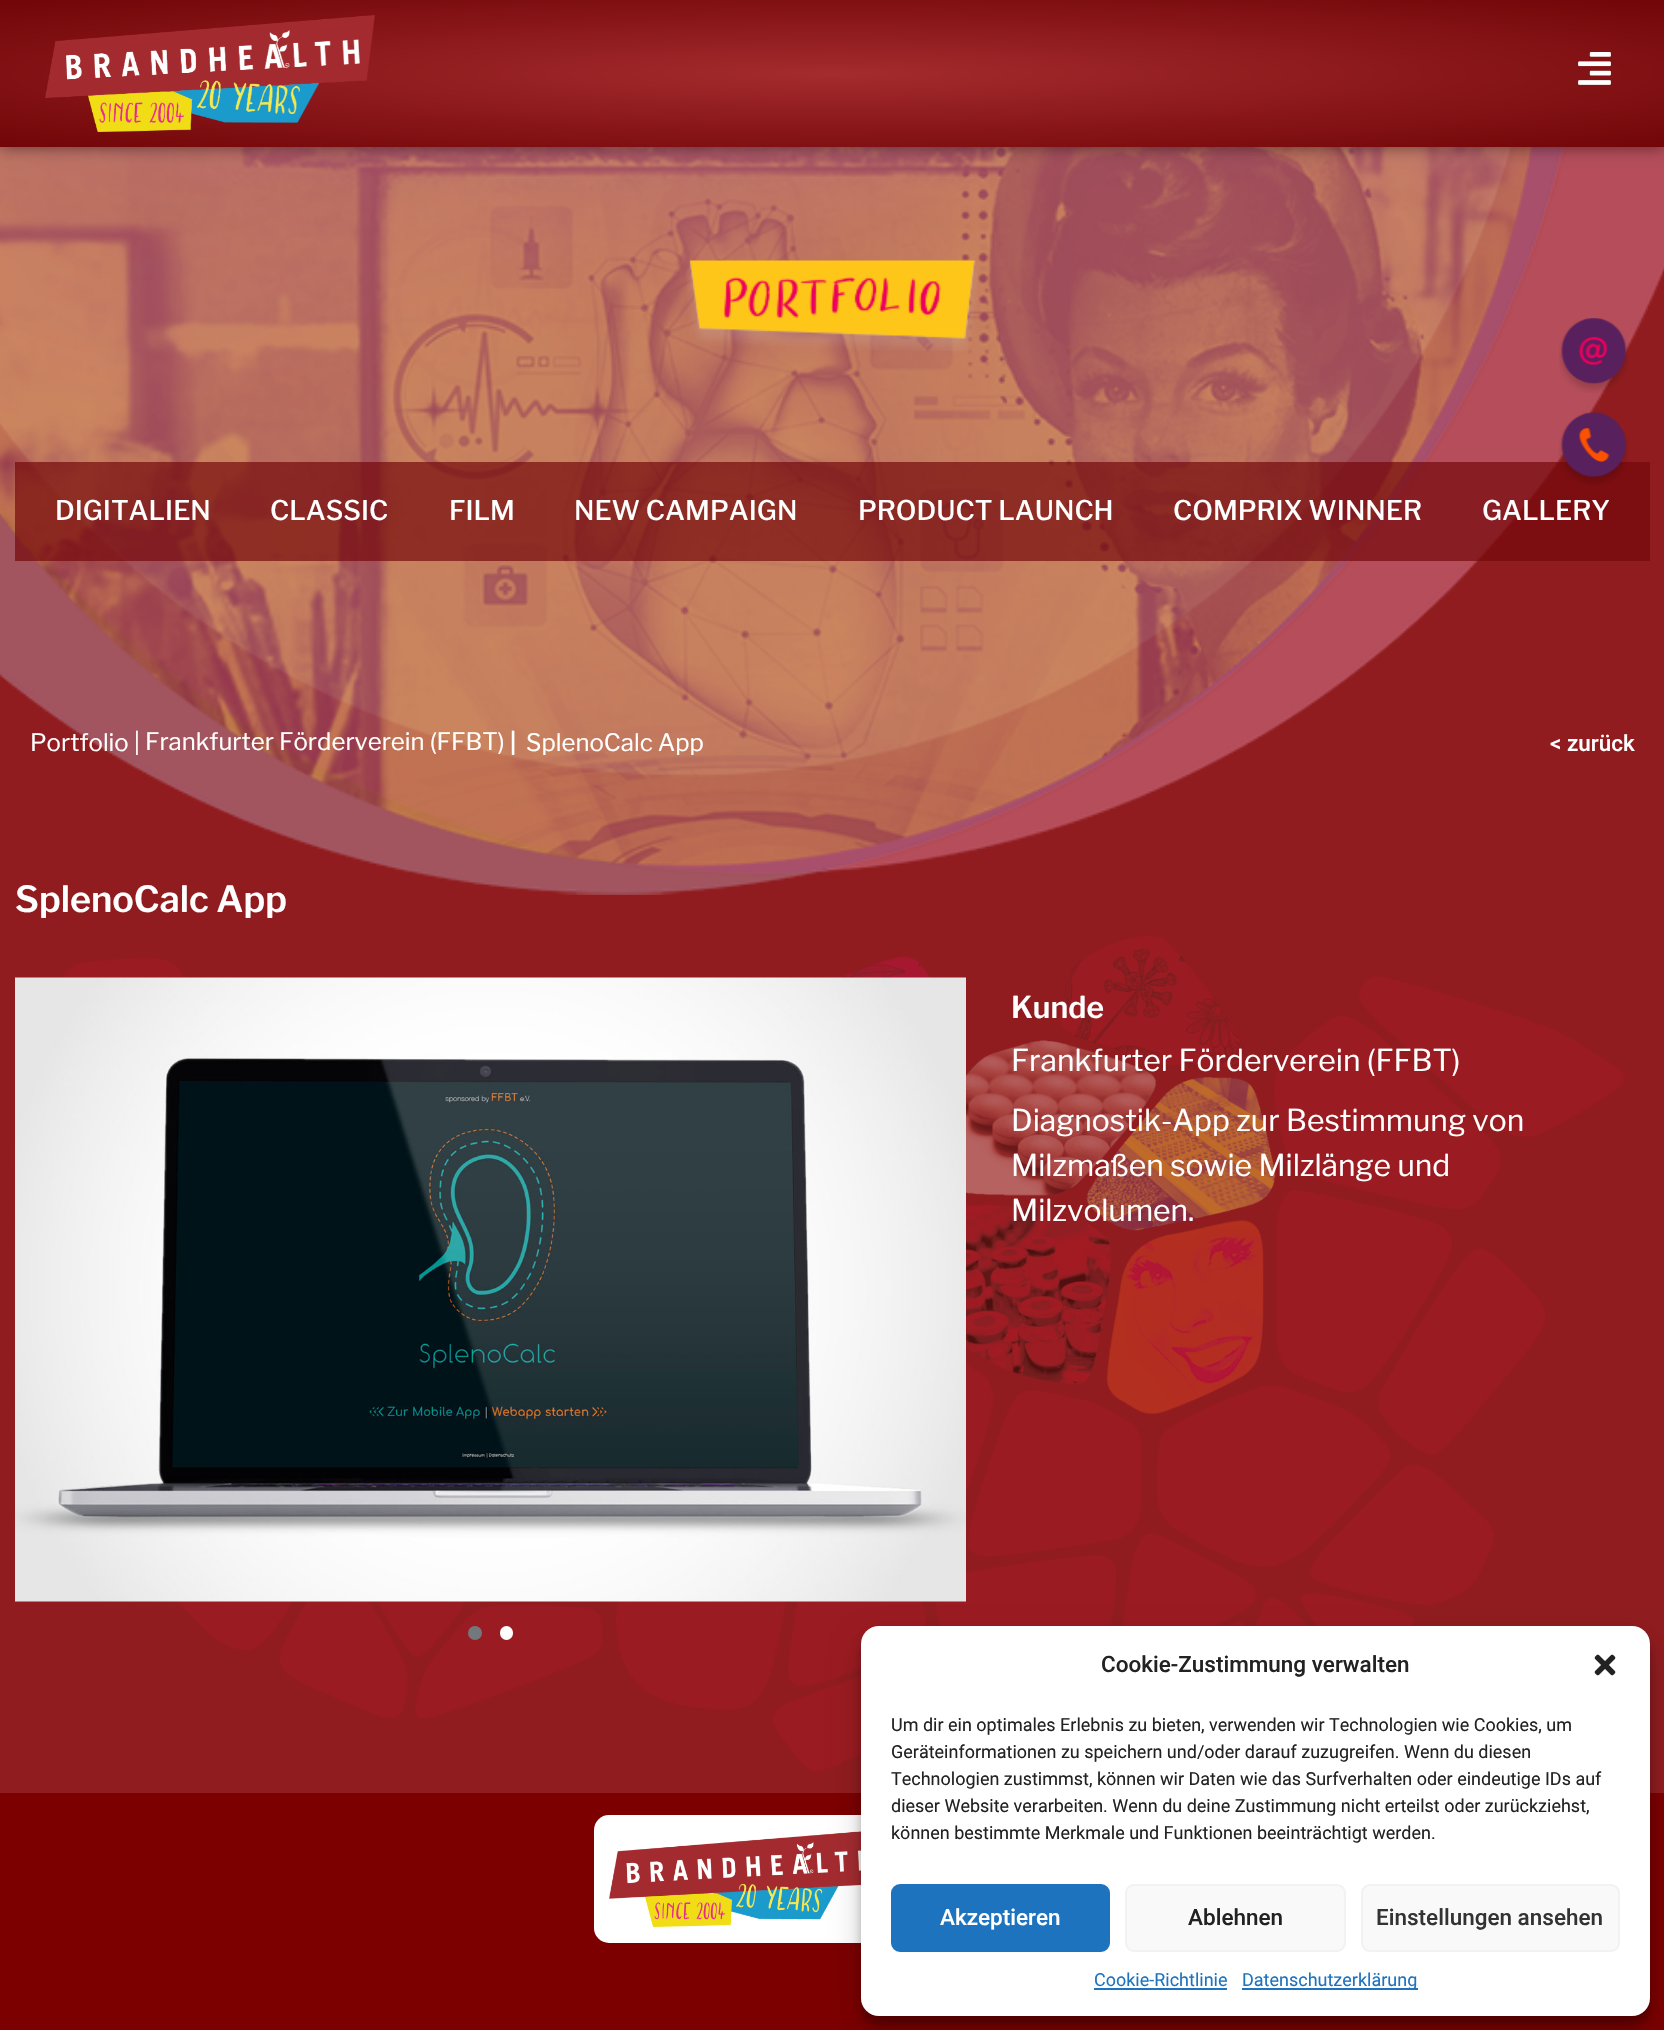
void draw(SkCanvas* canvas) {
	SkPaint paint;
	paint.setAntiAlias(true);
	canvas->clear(0xff901c1f);
	canvas->drawImageRect(SkImages::DeferredFromEncodedData(SkData::MakeFromFileName("img5.png")), SkRect::MakeXYWH(0, 147, 1664, 748), SkSamplingOptions());
	paint.setColor(0x80000000);
	paint.setMaskFilter(SkMaskFilter::MakeBlur(kNormal_SkBlurStyle, 7.5));
	canvas->drawRect(SkRect::MakeXYWH(0, 0, 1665, 147), paint);
	paint.setMaskFilter(nullptr);
	{
		const SkColor colors[] = {0xffa42b2e, 0xff710507};
		const float stops[] = {0, 1};
		SkMatrix m = SkMatrix::Translate(833, 74).preScale(1177, 104);
		paint.setShader(SkGradientShader::MakeRadial({0, 0}, 1, colors, stops, 2, SkTileMode::kClamp, 0, &m));
		paint.setAlpha(255);
	}
	canvas->drawRect(SkRect::MakeXYWH(0, 0, 1664, 147), paint);
	canvas->drawImageRect(SkImages::DeferredFromEncodedData(SkData::MakeFromFileName("img1.png")), SkRect::MakeXYWH(45, 15, 330, 117), SkSamplingOptions());
	canvas->drawImageRect(SkImages::DeferredFromEncodedData(SkData::MakeFromFileName("img2.png")), SkRect::MakeXYWH(1578, 52, 33, 33), SkSamplingOptions());
	canvas->drawImageRect(SkImages::DeferredFromEncodedData(SkData::MakeFromFileName("img3.png")), SkRect::MakeXYWH(1559, 318, 70, 75), SkSamplingOptions());
	paint.setShader(nullptr);
	paint.setColor(0xab710507);
	canvas->drawRect(SkRect::MakeXYWH(15, 462, 1635, 99), paint);
	canvas->drawImageRect(SkImages::DeferredFromEncodedData(SkData::MakeFromFileName("img4.png")), SkRect::MakeXYWH(1559, 412, 70, 73), SkSamplingOptions());
	canvas->drawImageRect(SkImages::DeferredFromEncodedData(SkData::MakeFromFileName("img6.png")), SkRect::MakeXYWH(687, 260, 291, 91), SkSamplingOptions());
	SkFont f1(fontMgr->matchFamilyStyle("Libre Franklin", SkFontStyle(500, SkFontStyle::kNormal_Width, SkFontStyle::kUpright_Slant)), 27);
	f1.setSubpixel(true);
	paint.setColor(0xffffffff);
	canvas->drawString("DIGITALIEN", 55, 520, f1, paint);
	canvas->drawString("CLASSIC", 270, 520, f1, paint);
	canvas->drawString("FILM", 449, 520, f1, paint);
	canvas->drawString("NEW CAMPAIGN", 574, 520, f1, paint);
	canvas->drawString("PRODUCT LAUNCH", 858, 520, f1, paint);
	canvas->drawString("COMPRIX WINNER", 1173, 520, f1, paint);
	canvas->drawString("GALLERY", 1482, 520, f1, paint);
	SkFont f2(fontMgr->matchFamilyStyle("Libre Franklin", SkFontStyle::Normal()), 24);
	f2.setSubpixel(true);
	canvas->drawString("Portfolio |", 30, 751, f2, paint);
	canvas->drawString("Frankfurter Förderverein (FFBT)", 145, 750, f2, paint);
	SkFont f3(fontMgr->matchFamilyStyle("Libre Franklin", SkFontStyle(600, SkFontStyle::kNormal_Width, SkFontStyle::kUpright_Slant)), 24);
	f3.setSubpixel(true);
	canvas->drawString("|", 510, 751, f3, paint);
	canvas->drawString("SplenoCalc App", 526, 751, f2, paint);
	SkFont f4(fontMgr->matchFamilyStyle("Roboto", SkFontStyle(500, SkFontStyle::kNormal_Width, SkFontStyle::kUpright_Slant)), 22.5);
	f4.setSubpixel(true);
	canvas->drawString("< zurück", 1550, 751, f4, paint);
	SkFont f5(fontMgr->matchFamilyStyle("Libre Franklin", SkFontStyle(600, SkFontStyle::kNormal_Width, SkFontStyle::kUpright_Slant)), 36);
	f5.setSubpixel(true);
	canvas->drawString("SplenoCalc App", 15, 912, f5, paint);
	canvas->drawImageRect(SkImages::DeferredFromEncodedData(SkData::MakeFromFileName("img8.png")), SkRect::MakeXYWH(62, 935, 1563, 837), SkSamplingOptions());
	canvas->drawImageRect(SkImages::DeferredFromEncodedData(SkData::MakeFromFileName("img7.png")), SkRect::MakeXYWH(15, 977, 951, 625), SkSamplingOptions());
	paint.setColor(0xff73787d);
	canvas->drawCircle(475, 1633, 7, paint);
	paint.setColor(0xffffffff);
	canvas->drawRoundRect(SkRect::MakeXYWH(500, 1626, 13, 14), 6.5, 6.5, paint);
	SkFont f6(fontMgr->matchFamilyStyle("Libre Franklin", SkFontStyle(600, SkFontStyle::kNormal_Width, SkFontStyle::kUpright_Slant)), 30);
	f6.setSubpixel(true);
	canvas->drawString("Kunde", 1011, 1018, f6, paint);
	SkFont f7(fontMgr->matchFamilyStyle("Libre Franklin", SkFontStyle::Normal()), 30);
	f7.setSubpixel(true);
	canvas->drawString("Frankfurter Förderverein (FFBT)", 1011, 1071, f7, paint);
	canvas->drawString("Diagnostik-App zur Bestimmung von", 1011, 1131, f7, paint);
	canvas->drawString("Milzmaßen sowie Milzlänge und", 1011, 1176, f7, paint);
	canvas->drawString("Milzvolumen.", 1011, 1221, f7, paint);
	paint.setColor(0xff7c0000);
	canvas->drawRect(SkRect::MakeXYWH(0, 1793, 1664, 237), paint);
	paint.setColor(0xffffffff);
	canvas->drawRoundRect(SkRect::MakeXYWH(594, 1815, 306, 128), 15, 15, paint);
	canvas->drawImageRect(SkImages::DeferredFromEncodedData(SkData::MakeFromFileName("img10.png")), SkRect::MakeXYWH(609, 1831, 252, 96), SkSamplingOptions());
	paint.setColor(0x3b000000);
	paint.setMaskFilter(SkMaskFilter::MakeBlur(kNormal_SkBlurStyle, 4.5));
	canvas->drawRoundRect(SkRect::MakeXYWH(861, 1635, 789, 390), 18, 18, paint);
	paint.setMaskFilter(nullptr);
	paint.setColor(0x30000000);
	paint.setMaskFilter(SkMaskFilter::MakeBlur(kNormal_SkBlurStyle, 15));
	canvas->drawRoundRect(SkRect::MakeXYWH(861, 1641, 789, 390), 18, 18, paint);
	paint.setMaskFilter(nullptr);
	paint.setColor(0xffffffff);
	canvas->drawRoundRect(SkRect::MakeXYWH(861, 1626, 789, 390), 18, 18, paint);
	paint.setColor(0xff222222);
	canvas->drawString("Cookie-Zustimmung verwalten", 1101, 1672, f4, paint);
	canvas->drawImageRect(SkImages::DeferredFromEncodedData(SkData::MakeFromFileName("img9.png")), SkRect::MakeXYWH(1594, 1654, 22, 22), SkSamplingOptions());
	SkFont f8(fontMgr->matchFamilyStyle("Roboto", SkFontStyle::Normal()), 18);
	f8.setSubpixel(true);
	canvas->drawString("Um dir ein optimales Erlebnis zu bieten, verwenden wir Technologien wie Cookies, um", 891, 1731, f8, paint);
	canvas->drawString("Geräteinformationen zu speichern und/oder darauf zuzugreifen. Wenn du diesen", 891, 1758, f8, paint);
	canvas->drawString("Technologien zustimmst, können wir Daten wie das Surfverhalten oder eindeutige IDs auf", 891, 1785, f8, paint);
	canvas->drawString("dieser Website verarbeiten. Wenn du deine Zustimmung nicht erteilst oder zurückziehst,", 891, 1812, f8, paint);
	canvas->drawString("können bestimmte Merkmale und Funktionen beeinträchtigt werden.", 891, 1839, f8, paint);
	paint.setColor(0xff1e73be);
	canvas->drawRoundRect(SkRect::MakeXYWH(892, 1885, 217, 66), 8, 8, paint);
	paint.setStroke(true);
	paint.setStrokeWidth(2);
	canvas->drawRoundRect(SkRect::MakeXYWH(892, 1885, 217, 66), 8, 8, paint);
	paint.setStroke(false);
	paint.setColor(0xffffffff);
	canvas->drawString("Akzeptieren", 940, 1925, f4, paint);
	paint.setColor(0xfff9f9f9);
	canvas->drawRoundRect(SkRect::MakeXYWH(1126, 1885, 219, 66), 8, 8, paint);
	paint.setStroke(true);
	paint.setColor(0xfff2f2f2);
	canvas->drawRoundRect(SkRect::MakeXYWH(1126, 1885, 219, 66), 8, 8, paint);
	paint.setStroke(false);
	paint.setColor(0xff222222);
	canvas->drawString("Ablehnen", 1188, 1925, f4, paint);
	paint.setColor(0xfff9f9f9);
	canvas->drawRoundRect(SkRect::MakeXYWH(1362, 1885, 257, 66), 8, 8, paint);
	paint.setStroke(true);
	paint.setColor(0xfff2f2f2);
	canvas->drawRoundRect(SkRect::MakeXYWH(1362, 1885, 257, 66), 8, 8, paint);
	paint.setStroke(false);
	paint.setColor(0xff333333);
	canvas->drawString("Einstellungen ansehen", 1376, 1925, f4, paint);
	paint.setColor(0xff1e73be);
	canvas->drawString("Cookie-Richtlinie", 1094, 1986, f8, paint);
	canvas->drawRect(SkRect::MakeXYWH(1094, 1988, 133, 2), paint);
	canvas->drawRect(SkRect::MakeXYWH(1242, 1988, 176, 2), paint);
	canvas->drawString("Datenschutzerklärung", 1242, 1986, f8, paint);
}
